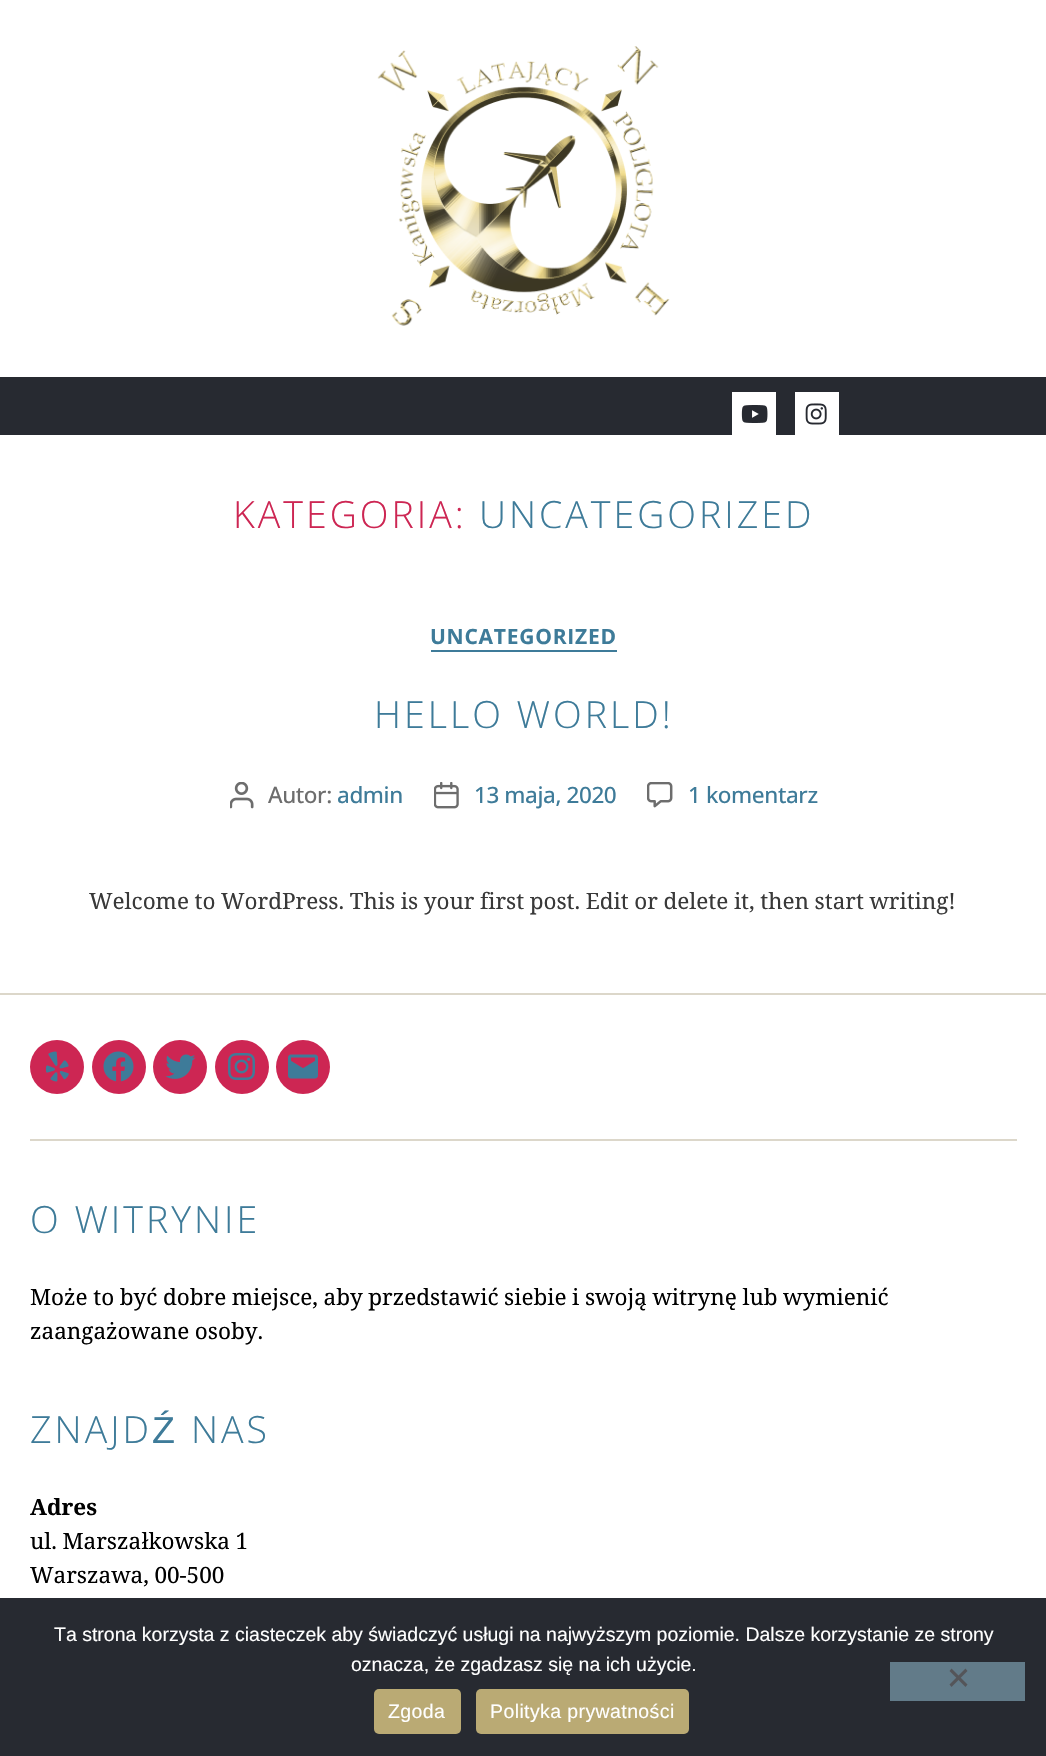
void draw(SkCanvas* canvas) {
	SkPaint paint;
	paint.setAntiAlias(true);
	auto spacedText = [&](const char* s, float x, float y, const SkFont& font, const SkPaint& ink, float letter, float word) {
		std::vector<SkGlyphID> glyphs(font.countText(s, strlen(s), SkTextEncoding::kUTF8));
		std::vector<float> xs(glyphs.size());
		font.textToGlyphs(s, strlen(s), SkTextEncoding::kUTF8, glyphs);
		font.getXPos(glyphs, xs, x);
		float extra = 0;
		for (size_t i = 0; i < glyphs.size(); i++) {
			xs[i] += extra;
			extra += letter + word * (glyphs[i] == font.unicharToGlyph(' '));
		}
		canvas->drawTextBlob(SkTextBlob::MakeFromPosHGlyphs(glyphs, xs, y, font), 0, 0, ink);
	};
	auto svgPath = [&](const char* data, bool evenOdd = false) {
		SkPath result = *SkParsePath::FromSVGString(data);
		if (evenOdd) result.setFillType(SkPathFillType::kEvenOdd);
		return result;
	};
	canvas->clear(0xffffffff);
	canvas->drawImageRect(SkImages::DeferredFromEncodedData(SkData::MakeFromFileName("img1.png")), SkRect::MakeXYWH(377, 46, 293, 280), SkSamplingOptions());
	paint.setColor(0xff272a31);
	canvas->drawRect(SkRect::MakeXYWH(0, 377, 1046, 58), paint);
	paint.setColor(0xffffffff);
	canvas->drawRect(SkRect::MakeXYWH(732, 392, 44, 43), paint);
	canvas->drawImageRect(SkImages::DeferredFromEncodedData(SkData::MakeFromFileName("img2.png")), SkRect::MakeXYWH(741, 405, 27, 18), SkSamplingOptions());
	canvas->drawRect(SkRect::MakeXYWH(795, 392, 44, 43), paint);
	canvas->drawImageRect(SkImages::DeferredFromEncodedData(SkData::MakeFromFileName("img3.png")), SkRect::MakeXYWH(805, 403, 22, 22), SkSamplingOptions());
	SkFont f1(fontMgr->matchFamilyStyle("Open Sans", SkFontStyle(300, SkFontStyle::kNormal_Width, SkFontStyle::kUpright_Slant)), 37.5);
	f1.setSubpixel(true);
	paint.setColor(0xffcd2653);
	spacedText("KATEGORIA:", 233, 528, f1, paint, 3, 0);
	paint.setColor(0xff3e7b99);
	spacedText("UNCATEGORIZED", 479, 528, f1, paint, 3, 0);
	canvas->drawRect(SkRect::MakeXYWH(431, 650, 186, 2), paint);
	SkFont f2(fontMgr->matchFamilyStyle("Open Sans", SkFontStyle::Bold()), 21);
	f2.setSubpixel(true);
	spacedText("UNCATEGORIZED", 430, 644, f2, paint, 0.75, 0);
	spacedText("HELLO WORLD!", 374, 728, f1, paint, 3, 0);
	canvas->drawImageRect(SkImages::DeferredFromEncodedData(SkData::MakeFromFileName("img4.png")), SkRect::MakeXYWH(230, 782, 24, 27), SkSamplingOptions());
	SkFont f3(fontMgr->matchFamilyStyle("Open Sans", SkFontStyle(500, SkFontStyle::kNormal_Width, SkFontStyle::kUpright_Slant)), 22.5);
	f3.setSubpixel(true);
	paint.setColor(0xff6d6d6d);
	spacedText("Autor:", 268, 803, f3, paint, -0.4, 0);
	paint.setColor(0xff3e7b99);
	spacedText("admin", 337, 803, f3, paint, -0.4, 0);
	canvas->drawImageRect(SkImages::DeferredFromEncodedData(SkData::MakeFromFileName("img5.png")), SkRect::MakeXYWH(434, 782, 25, 27), SkSamplingOptions());
	spacedText("13 maja, 2020", 474, 803, f3, paint, -0.4, 0);
	canvas->drawImageRect(SkImages::DeferredFromEncodedData(SkData::MakeFromFileName("img6.png")), SkRect::MakeXYWH(647, 782, 26, 26), SkSamplingOptions());
	spacedText("1 komentarz", 688, 803, f3, paint, -0.4, 0);
	SkFont f4(fontMgr->matchFamilyStyle("Noto Serif", SkFontStyle::Normal()), 22.5);
	f4.setSubpixel(true);
	paint.setColor(0xff393939);
	spacedText("Welcome to WordPress. This is your first post. Edit or delete it, then start writing!", 89, 909, f4, paint, 0, -0.25);
	paint.setColor(0xffdcd7ca);
	canvas->drawRect(SkRect::MakeXYWH(0, 993, 1046, 2), paint);
	canvas->drawRect(SkRect::MakeXYWH(30, 1139, 987, 2), paint);
	paint.setColor(0xffcd2653);
	canvas->drawCircle(57, 1067, 27, paint);
	canvas->drawImageRect(SkImages::DeferredFromEncodedData(SkData::MakeFromFileName("img7.png")), SkRect::MakeXYWH(45, 1051, 24, 31), SkSamplingOptions());
	canvas->drawCircle(119, 1067, 27, paint);
	canvas->drawImageRect(SkImages::DeferredFromEncodedData(SkData::MakeFromFileName("img8.png")), SkRect::MakeXYWH(103, 1051, 31, 31), SkSamplingOptions());
	canvas->drawCircle(180, 1067, 27, paint);
	canvas->drawImageRect(SkImages::DeferredFromEncodedData(SkData::MakeFromFileName("img9.png")), SkRect::MakeXYWH(165, 1054, 31, 25), SkSamplingOptions());
	canvas->drawCircle(242, 1067, 27, paint);
	canvas->drawImageRect(SkImages::DeferredFromEncodedData(SkData::MakeFromFileName("img10.png")), SkRect::MakeXYWH(228, 1053, 27, 27), SkSamplingOptions());
	canvas->drawCircle(303, 1067, 27, paint);
	canvas->drawImageRect(SkImages::DeferredFromEncodedData(SkData::MakeFromFileName("img11.png")), SkRect::MakeXYWH(288, 1054, 30, 25), SkSamplingOptions());
	paint.setColor(0xff3e7b99);
	spacedText("O WITRYNIE", 30, 1233, f1, paint, 3, 0);
	paint.setColor(0xff000000);
	spacedText("Może to być dobre miejsce, aby przedstawić siebie i swoją witrynę lub wymienić", 30, 1305, f4, paint, 0, -0.25);
	spacedText("zaangażowane osoby.", 30, 1339, f4, paint, 0, -0.25);
	paint.setColor(0xff3e7b99);
	spacedText("ZNAJD", 30, 1443, f1, paint, 3, 0);
	SkFont f5(fontMgr->matchFamilyStyle("Liberation Sans", SkFontStyle::Normal()), 37.5);
	f5.setSubpixel(true);
	spacedText("Ź", 152, 1443, f5, paint, 3, 0);
	spacedText("NAS", 191, 1443, f1, paint, 3, 0);
	SkFont f6(fontMgr->matchFamilyStyle("Noto Serif", SkFontStyle::Bold()), 22.5);
	f6.setSubpixel(true);
	paint.setColor(0xff000000);
	canvas->drawString("Adres", 30, 1515, f6, paint);
	spacedText("ul. Marszałkowska 1", 30, 1549, f4, paint, 0, -0.25);
	spacedText("Warszawa, 00-500", 30, 1583, f4, paint, 0, -0.25);
	paint.setColor(0xff272a31);
	canvas->drawRect(SkRect::MakeXYWH(0, 1598, 1046, 158), paint);
	SkFont f7(fontMgr->matchFamilyStyle("Liberation Sans", SkFontStyle::Normal()), 19.5);
	f7.setSubpixel(true);
	paint.setColor(0xffffffff);
	canvas->drawString("Ta strona korzysta z ciasteczek aby świadczyć usługi na najwyższym poziomie. Dalsze korzystanie ze strony", 54, 1641, f7, paint);
	canvas->drawString("oznacza, że zgadzasz się na ich użycie.", 351, 1671, f7, paint);
	paint.setColor(0xff627b89);
	canvas->drawRect(SkRect::MakeXYWH(890, 1662, 135, 39), paint);
	paint.setColor(0xff545559);
	canvas->drawPath(svgPath("M965.5 1668.5L967.5 1671L951.5 1687L949.5 1684.5Z"), paint);
	canvas->drawPath(svgPath("M949.5 1671L951.5 1668.5L967.5 1684.5L965.5 1687Z"), paint);
	paint.setColor(0xffbaaa74);
	canvas->drawRoundRect(SkRect::MakeXYWH(374, 1689, 87, 45), 5, 5, paint);
	paint.setColor(0xffffffff);
	spacedText("Zgoda", 388, 1718, f7, paint, 0.4, 0);
	paint.setColor(0xffbaaa74);
	canvas->drawRoundRect(SkRect::MakeXYWH(476, 1689, 213, 45), 5, 5, paint);
	paint.setColor(0xffffffff);
	spacedText("Polityka prywatności", 490, 1718, f7, paint, 0.4, 0);
}
